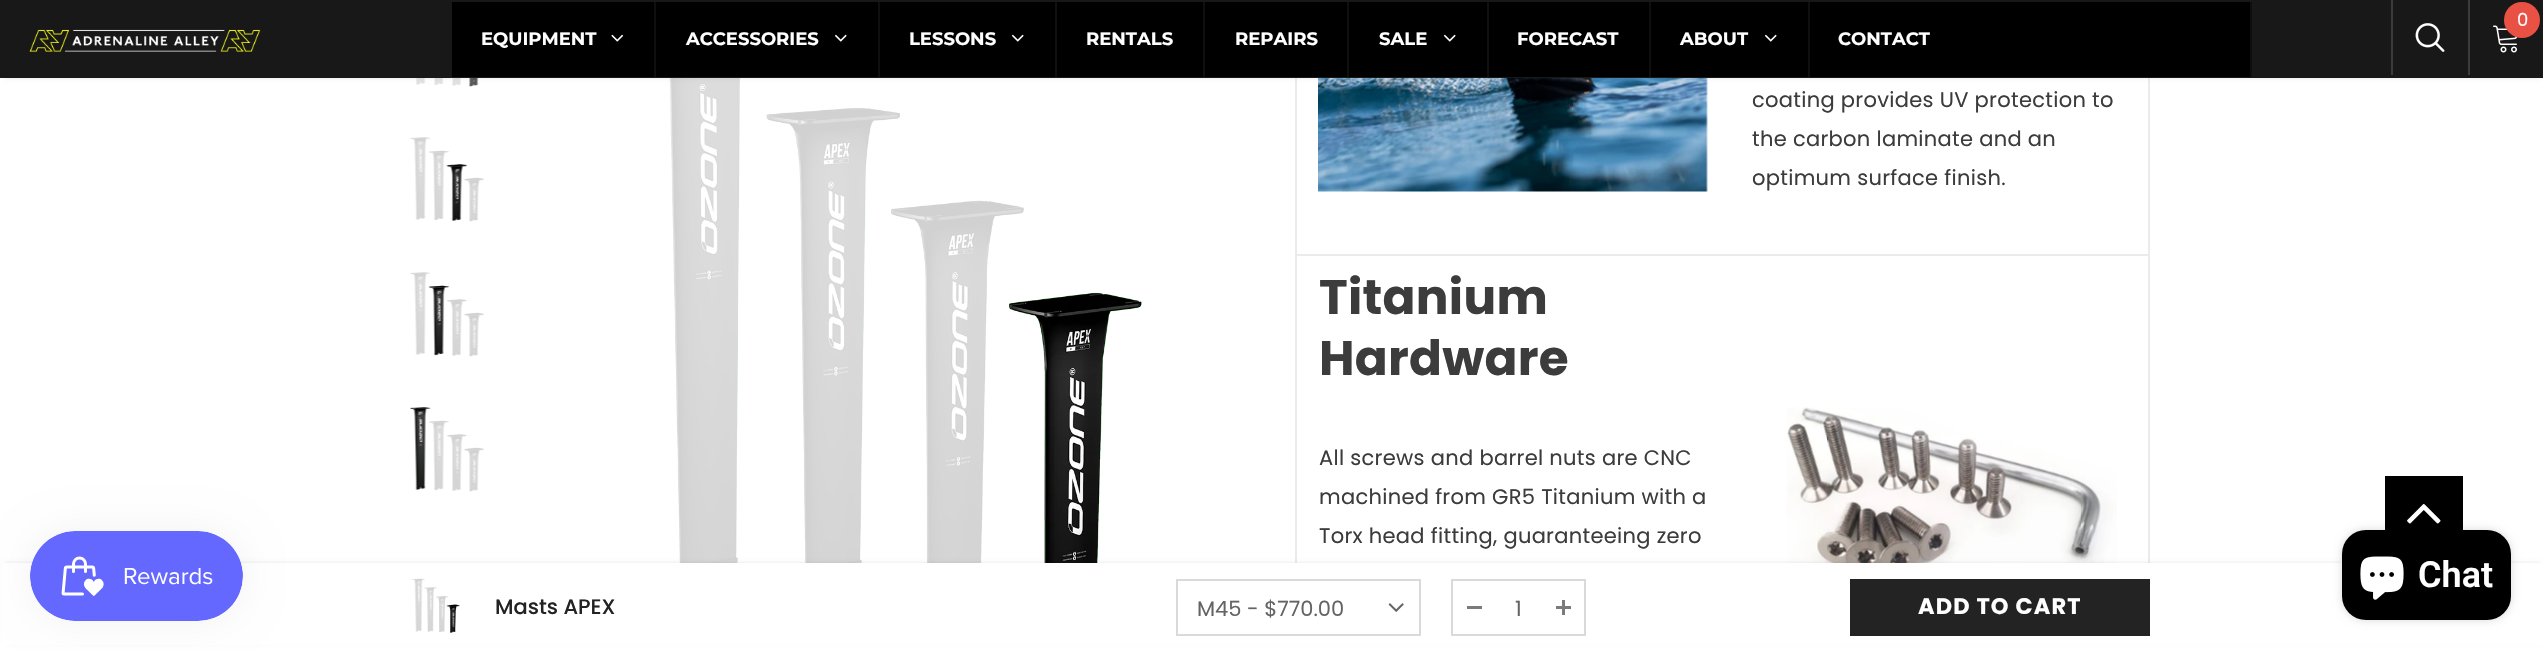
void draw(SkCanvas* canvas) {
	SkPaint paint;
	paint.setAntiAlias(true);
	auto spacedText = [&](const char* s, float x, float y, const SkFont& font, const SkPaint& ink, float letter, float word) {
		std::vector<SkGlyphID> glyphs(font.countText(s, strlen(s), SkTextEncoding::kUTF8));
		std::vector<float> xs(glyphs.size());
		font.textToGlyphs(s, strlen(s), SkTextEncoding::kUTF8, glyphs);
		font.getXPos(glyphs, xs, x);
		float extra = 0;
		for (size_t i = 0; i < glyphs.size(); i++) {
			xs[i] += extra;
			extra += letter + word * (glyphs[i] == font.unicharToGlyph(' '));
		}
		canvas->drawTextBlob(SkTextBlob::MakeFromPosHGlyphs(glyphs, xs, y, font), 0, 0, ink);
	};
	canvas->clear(0xffffffff);
	canvas->drawImageRect(SkImages::DeferredFromEncodedData(SkData::MakeFromFileName("img7.png")), SkRect::MakeXYWH(416, 78, 63, 9), SkSamplingOptions());
	canvas->drawImageRect(SkImages::DeferredFromEncodedData(SkData::MakeFromFileName("img11.png")), SkRect::MakeXYWH(669, 78, 473, 485), SkSamplingOptions());
	paint.setColor(0xffebebeb);
	canvas->drawRect(SkRect::MakeXYWH(2148, 78, 2, 485), paint);
	canvas->drawRect(SkRect::MakeXYWH(1295, 78, 2, 485), paint);
	canvas->drawImageRect(SkImages::DeferredFromEncodedData(SkData::MakeFromFileName("img12.png")), SkRect::MakeXYWH(1318, 78, 390, 114), SkSamplingOptions());
	paint.setColor(0x1a000000);
	paint.setMaskFilter(SkMaskFilter::MakeBlur(kNormal_SkBlurStyle, 2));
	canvas->drawRect(SkRect::MakeXYWH(5, 9, 2535, 69), paint);
	paint.setMaskFilter(nullptr);
	paint.setColor(0xff191818);
	canvas->drawRect(SkRect::MakeXYWH(0, 0, 2543, 78), paint);
	paint.setColor(0xff3c3b3b);
	canvas->drawRect(SkRect::MakeXYWH(2391, 0, 2, 75), paint);
	canvas->drawImageRect(SkImages::DeferredFromEncodedData(SkData::MakeFromFileName("img1.png")), SkRect::MakeXYWH(2415, 23, 30, 29), SkSamplingOptions());
	canvas->drawRect(SkRect::MakeXYWH(2468, 0, 2, 75), paint);
	canvas->drawImageRect(SkImages::DeferredFromEncodedData(SkData::MakeFromFileName("img2.png")), SkRect::MakeXYWH(2493, 25, 25, 28), SkSamplingOptions());
	paint.setColor(0xffe95144);
	canvas->drawCircle(2522, 20, 18, paint);
	SkFont f1(fontMgr->matchFamilyStyle("Poppins", SkFontStyle::Normal()), 18);
	f1.setSubpixel(true);
	paint.setColor(0xffffffff);
	canvas->drawString("0", 2517, 26, f1, paint);
	canvas->drawImageRect(SkImages::DeferredFromEncodedData(SkData::MakeFromFileName("img3.png")), SkRect::MakeXYWH(29, 29, 232, 23), SkSamplingOptions());
	paint.setColor(0xff000000);
	canvas->drawRect(SkRect::MakeXYWH(452, 2, 1798, 75), paint);
	SkFont f2(fontMgr->matchFamilyStyle("Montserrat", SkFontStyle::Bold()), 18);
	f2.setSubpixel(true);
	paint.setColor(0xffffffff);
	canvas->drawString("EQUIPMENT", 481, 45, f2, paint);
	canvas->drawImageRect(SkImages::DeferredFromEncodedData(SkData::MakeFromFileName("img4.png")), SkRect::MakeXYWH(611, 34, 12, 8), SkSamplingOptions());
	paint.setColor(0xff0f0f0f);
	canvas->drawRect(SkRect::MakeXYWH(654, 2, 2, 75), paint);
	paint.setColor(0xffffffff);
	canvas->drawString("ACCESSORIES", 686, 45, f2, paint);
	canvas->drawImageRect(SkImages::DeferredFromEncodedData(SkData::MakeFromFileName("img5.png")), SkRect::MakeXYWH(835, 34, 12, 8), SkSamplingOptions());
	paint.setColor(0xff0f0f0f);
	canvas->drawRect(SkRect::MakeXYWH(878, 2, 2, 75), paint);
	paint.setColor(0xffffffff);
	canvas->drawString("LESSONS", 909, 45, f2, paint);
	canvas->drawImageRect(SkImages::DeferredFromEncodedData(SkData::MakeFromFileName("img5.png")), SkRect::MakeXYWH(1012, 34, 12, 8), SkSamplingOptions());
	paint.setColor(0xff0f0f0f);
	canvas->drawRect(SkRect::MakeXYWH(1055, 2, 2, 75), paint);
	paint.setColor(0xffffffff);
	canvas->drawString("RENTALS", 1086, 45, f2, paint);
	paint.setColor(0xff0f0f0f);
	canvas->drawRect(SkRect::MakeXYWH(1203, 2, 2, 75), paint);
	paint.setColor(0xffffffff);
	canvas->drawString("REPAIRS", 1235, 45, f2, paint);
	paint.setColor(0xff0f0f0f);
	canvas->drawRect(SkRect::MakeXYWH(1347, 2, 2, 75), paint);
	paint.setColor(0xffffffff);
	canvas->drawString("SALE", 1379, 45, f2, paint);
	canvas->drawImageRect(SkImages::DeferredFromEncodedData(SkData::MakeFromFileName("img5.png")), SkRect::MakeXYWH(1444, 34, 12, 8), SkSamplingOptions());
	paint.setColor(0xff0f0f0f);
	canvas->drawRect(SkRect::MakeXYWH(1487, 2, 2, 75), paint);
	paint.setColor(0xffffffff);
	canvas->drawString("FORECAST", 1517, 45, f2, paint);
	paint.setColor(0xff0f0f0f);
	canvas->drawRect(SkRect::MakeXYWH(1649, 2, 2, 75), paint);
	paint.setColor(0xffffffff);
	canvas->drawString("ABOUT", 1680, 45, f2, paint);
	canvas->drawImageRect(SkImages::DeferredFromEncodedData(SkData::MakeFromFileName("img5.png")), SkRect::MakeXYWH(1765, 34, 12, 8), SkSamplingOptions());
	paint.setColor(0xff0f0f0f);
	canvas->drawRect(SkRect::MakeXYWH(1808, 2, 2, 75), paint);
	paint.setColor(0xffffffff);
	canvas->drawString("CONTACT", 1838, 45, f2, paint);
	paint.setColor(0xff0f0f0f);
	canvas->drawRect(SkRect::MakeXYWH(2250, 2, 2, 75), paint);
	canvas->drawImageRect(SkImages::DeferredFromEncodedData(SkData::MakeFromFileName("img13.png")), SkRect::MakeXYWH(1787, 407, 330, 156), SkSamplingOptions());
	paint.setColor(0x1a000000);
	paint.setMaskFilter(SkMaskFilter::MakeBlur(kNormal_SkBlurStyle, 2));
	canvas->drawRect(SkRect::MakeXYWH(5, 563, 2535, 79), paint);
	paint.setMaskFilter(nullptr);
	paint.setColor(0xffffffff);
	canvas->drawRect(SkRect::MakeXYWH(2, 563, 2541, 82), paint);
	paint.setColor(0x0d000000);
	paint.setMaskFilter(SkMaskFilter::MakeBlur(kNormal_SkBlurStyle, 19));
	canvas->drawRoundRect(SkRect::MakeXYWH(30, 531, 213, 90), 45, 45, paint);
	paint.setMaskFilter(nullptr);
	canvas->drawImageRect(SkImages::DeferredFromEncodedData(SkData::MakeFromFileName("img6.png")), SkRect::MakeXYWH(30, 531, 213, 90), SkSamplingOptions());
	canvas->drawImageRect(SkImages::DeferredFromEncodedData(SkData::MakeFromFileName("img8.png")), SkRect::MakeXYWH(410, 137, 74, 85), SkSamplingOptions());
	canvas->drawImageRect(SkImages::DeferredFromEncodedData(SkData::MakeFromFileName("img9.png")), SkRect::MakeXYWH(410, 272, 74, 85), SkSamplingOptions());
	canvas->drawImageRect(SkImages::DeferredFromEncodedData(SkData::MakeFromFileName("img10.png")), SkRect::MakeXYWH(410, 407, 74, 85), SkSamplingOptions());
	paint.setColor(0xffebebeb);
	canvas->drawRect(SkRect::MakeXYWH(1295, 254, 855, 2), paint);
	SkFont f3(fontMgr->matchFamilyStyle("Poppins", SkFontStyle::Normal()), 21);
	f3.setSubpixel(true);
	paint.setColor(0xff3c3c3c);
	spacedText("coating provides UV protection to", 1752, 107, f3, paint, 0.3, 0);
	spacedText("the carbon laminate and an", 1752, 146, f3, paint, 0.3, 0);
	spacedText("optimum surface finish.", 1752, 185, f3, paint, 0.3, 0);
	SkFont f4(fontMgr->matchFamilyStyle("Poppins", SkFontStyle::Bold()), 48.5);
	f4.setSubpixel(true);
	spacedText("Titanium", 1319, 314, f4, paint, 0.3, 0);
	spacedText("Hardware", 1319, 375, f4, paint, 0.3, 0);
	spacedText("All screws and barrel nuts are CNC", 1319, 465, f3, paint, 0.3, 0);
	spacedText("machined from GR5 Titanium with a", 1319, 504, f3, paint, 0.3, 0);
	spacedText("Torx head fitting, guaranteeing zero", 1319, 543, f3, paint, 0.3, 0);
	paint.setColor(0xff000000);
	canvas->drawRect(SkRect::MakeXYWH(2385, 476, 78, 54), paint);
	canvas->drawImageRect(SkImages::DeferredFromEncodedData(SkData::MakeFromFileName("img14.png")), SkRect::MakeXYWH(2407, 504, 34, 20), SkSamplingOptions());
	canvas->drawImageRect(SkImages::DeferredFromEncodedData(SkData::MakeFromFileName("img15.png")), SkRect::MakeXYWH(412, 578, 48, 55), SkSamplingOptions());
	SkFont f5(fontMgr->matchFamilyStyle("Poppins", SkFontStyle(500, SkFontStyle::kNormal_Width, SkFontStyle::kUpright_Slant)), 21);
	f5.setSubpixel(true);
	paint.setColor(0xff232323);
	canvas->drawString("Masts APEX", 495, 614, f5, paint);
	paint.setStroke(true);
	paint.setStrokeWidth(2);
	paint.setColor(0xffdadada);
	canvas->drawRect(SkRect::MakeXYWH(1177, 580, 243, 55), paint);
	paint.setStroke(false);
	paint.setColor(0xff646464);
	canvas->drawString("M45 - $770.00", 1197, 616, f3, paint);
	canvas->drawImageRect(SkImages::DeferredFromEncodedData(SkData::MakeFromFileName("img16.png")), SkRect::MakeXYWH(1388, 603, 16, 9), SkSamplingOptions());
	paint.setStroke(true);
	paint.setColor(0xffdadada);
	canvas->drawRect(SkRect::MakeXYWH(1452, 580, 133, 55), paint);
	paint.setStroke(false);
	paint.setColor(0xff7b7b7b);
	canvas->drawRect(SkRect::MakeXYWH(1467, 606, 15, 3), paint);
	paint.setColor(0xff646464);
	canvas->drawString("1", 1515, 616, f3, paint);
	paint.setColor(0xff7b7b7b);
	canvas->drawRect(SkRect::MakeXYWH(1556, 606, 15, 3), paint);
	canvas->drawRect(SkRect::MakeXYWH(1562, 600, 3, 15), paint);
	paint.setColor(0xff232323);
	canvas->drawRect(SkRect::MakeXYWH(1850, 579, 300, 57), paint);
	SkFont f6(fontMgr->matchFamilyStyle("Poppins", SkFontStyle::Bold()), 22.5);
	f6.setSubpixel(true);
	paint.setColor(0xffffffff);
	spacedText("ADD TO CART", 1918, 614, f6, paint, 1.1, 0);
	paint.setColor(0x26000000);
	paint.setMaskFilter(SkMaskFilter::MakeBlur(kNormal_SkBlurStyle, 4));
	canvas->drawRoundRect(SkRect::MakeXYWH(2342, 530, 169, 90), 24, 24, paint);
	paint.setMaskFilter(nullptr);
	paint.setColor(0xff000000);
	canvas->drawRoundRect(SkRect::MakeXYWH(2342, 530, 169, 90), 24, 24, paint);
	canvas->drawImageRect(SkImages::DeferredFromEncodedData(SkData::MakeFromFileName("img17.png")), SkRect::MakeXYWH(2360, 556, 44, 44), SkSamplingOptions());
	SkFont f7(fontMgr->matchFamilyStyle("Roboto", SkFontStyle(600, SkFontStyle::kNormal_Width, SkFontStyle::kUpright_Slant)), 36);
	f7.setSubpixel(true);
	paint.setColor(0xffffffff);
	canvas->drawString("Chat", 2418, 587, f7, paint);
}
